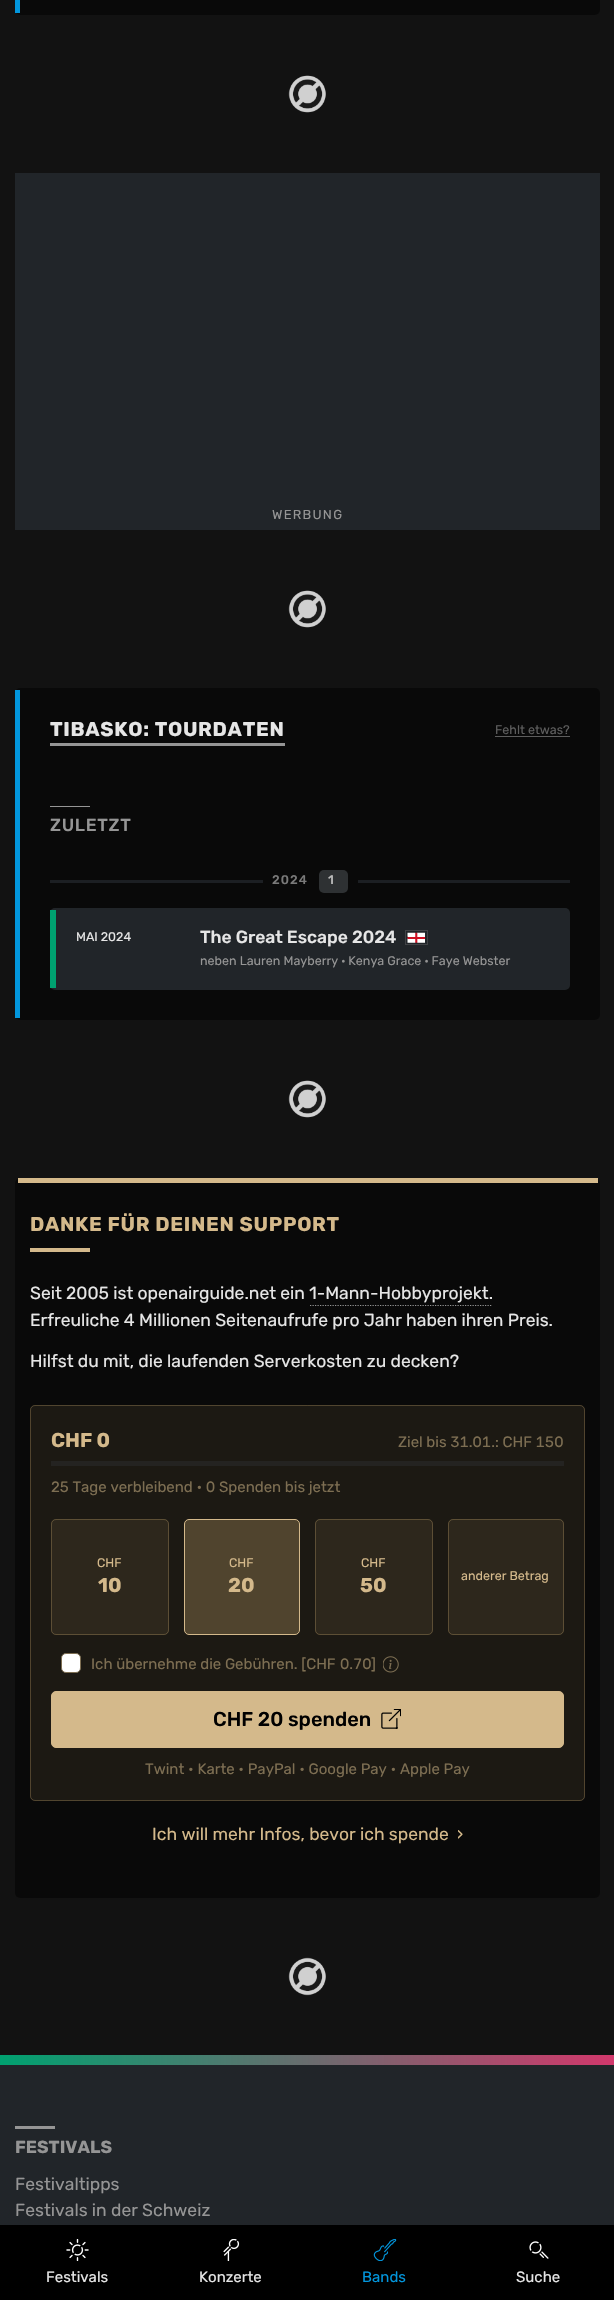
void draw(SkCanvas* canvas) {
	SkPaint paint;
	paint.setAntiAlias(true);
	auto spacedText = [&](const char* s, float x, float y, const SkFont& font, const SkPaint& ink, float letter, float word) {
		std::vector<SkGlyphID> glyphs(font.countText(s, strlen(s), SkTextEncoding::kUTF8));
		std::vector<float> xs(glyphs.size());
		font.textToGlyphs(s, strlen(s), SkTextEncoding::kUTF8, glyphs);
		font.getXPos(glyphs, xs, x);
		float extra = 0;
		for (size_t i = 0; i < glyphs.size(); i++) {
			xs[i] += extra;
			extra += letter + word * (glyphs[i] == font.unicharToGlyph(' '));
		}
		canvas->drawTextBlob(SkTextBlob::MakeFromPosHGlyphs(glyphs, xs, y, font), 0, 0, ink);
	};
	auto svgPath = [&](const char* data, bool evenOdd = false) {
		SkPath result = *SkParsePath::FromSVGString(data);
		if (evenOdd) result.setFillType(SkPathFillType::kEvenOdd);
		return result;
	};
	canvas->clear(0xff121212);
	paint.setColor(0xff090909);
	canvas->drawRoundRect(SkRect::MakeXYWH(15, -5, 585, 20), 5, 5, paint);
	paint.setColor(0xff0296dd);
	canvas->drawRect(SkRect::MakeXYWH(15, 0, 5, 13), paint);
	canvas->drawImageRect(SkImages::DeferredFromEncodedData(SkData::MakeFromFileName("img1.png")), SkRect::MakeXYWH(288, 75, 38, 38), SkSamplingOptions());
	paint.setColor(0xff212529);
	canvas->drawRect(SkRect::MakeXYWH(15, 173, 585, 357), paint);
	SkFont f1(fontMgr->matchFamilyStyle("Rubik", SkFontStyle::Normal()), 13);
	f1.setSubpixel(true);
	paint.setColor(0xff959595);
	spacedText("WERBUNG", 272, 519, f1, paint, 1.25, 0);
	canvas->drawImageRect(SkImages::DeferredFromEncodedData(SkData::MakeFromFileName("img1.png")), SkRect::MakeXYWH(288, 590, 38, 38), SkSamplingOptions());
	paint.setColor(0xff090909);
	canvas->drawRoundRect(SkRect::MakeXYWH(15, 688, 585, 332), 5, 5, paint);
	paint.setColor(0xff0296dd);
	canvas->drawRect(SkRect::MakeXYWH(15, 690, 5, 328), paint);
	paint.setColor(0xff959595);
	canvas->drawRect(SkRect::MakeXYWH(50, 743, 235, 3), paint);
	SkFont f2(fontMgr->matchFamilyStyle("Rubik", SkFontStyle::Bold()), 20);
	f2.setSubpixel(true);
	paint.setColor(0xffe6e6e6);
	spacedText("TIBASKO: TOURDATEN", 50, 736, f2, paint, 0.7, 0);
	SkFont f3(fontMgr->matchFamilyStyle("Rubik", SkFontStyle::Normal()), 12.5);
	f3.setSubpixel(true);
	paint.setColor(0xff5d5d5d);
	canvas->drawString("Fehlt etwas?", 495, 734, f3, paint);
	canvas->drawRect(SkRect::MakeXYWH(495, 736, 75, 1), paint);
	paint.setColor(0xff959595);
	canvas->drawRect(SkRect::MakeXYWH(50, 806, 40, 1), paint);
	SkFont f4(fontMgr->matchFamilyStyle("Rubik", SkFontStyle(500, SkFontStyle::kNormal_Width, SkFontStyle::kUpright_Slant)), 17.5);
	f4.setSubpixel(true);
	spacedText("ZULETZT", 50, 831, f4, paint, 0.7, 0);
	paint.setColor(0xff1c1f23);
	canvas->drawRect(SkRect::MakeXYWH(50, 880, 213, 3), paint);
	SkFont f5(fontMgr->matchFamilyStyle("Rubik", SkFontStyle(500, SkFontStyle::kNormal_Width, SkFontStyle::kUpright_Slant)), 12.5);
	f5.setSubpixel(true);
	paint.setColor(0xff797979);
	spacedText("2024", 272, 884, f5, paint, 1, 0);
	paint.setColor(0xff2e3133);
	canvas->drawRoundRect(SkRect::MakeXYWH(319, 870, 29, 23), 5, 5, paint);
	paint.setColor(0xffbababa);
	spacedText("1", 328, 884, f5, paint, 1.25, 0);
	paint.setColor(0xff1c1f23);
	canvas->drawRect(SkRect::MakeXYWH(358, 880, 212, 3), paint);
	paint.setColor(0xff212529);
	canvas->drawRoundRect(SkRect::MakeXYWH(50, 908, 520, 82), 5, 5, paint);
	paint.setColor(0xff00a170);
	canvas->drawRect(SkRect::MakeXYWH(50, 910, 6, 78), paint);
	paint.setColor(0xffe6e6e6);
	canvas->drawString("MAI 2024", 76, 941, f3, paint);
	canvas->drawString("The Great Escape 2024", 200, 943, f4, paint);
	paint.setStroke(true);
	paint.setStrokeWidth(1);
	paint.setColor(0xff414346);
	canvas->drawRect(SkRect::MakeXYWH(405.5, 930.5, 22, 14), paint);
	canvas->drawImageRect(SkImages::DeferredFromEncodedData(SkData::MakeFromFileName("img2.png")), SkRect::MakeXYWH(407, 932, 18, 11), SkSamplingOptions());
	paint.setStroke(false);
	paint.setColor(0xff959595);
	canvas->drawString("neben Lauren Mayberry · Kenya Grace · Faye Webster", 200, 965, f3, paint);
	canvas->drawImageRect(SkImages::DeferredFromEncodedData(SkData::MakeFromFileName("img1.png")), SkRect::MakeXYWH(288, 1080, 38, 38), SkSamplingOptions());
	paint.setColor(0xff090909);
	canvas->drawRoundRect(SkRect::MakeXYWH(15, 1178, 585, 720), 5, 5, paint);
	paint.setColor(0xffd4b98b);
	canvas->drawRect(SkRect::MakeXYWH(18, 1178, 580, 5), paint);
	spacedText("DANKE FÜR DEINEN SUPPORT", 30, 1231, f2, paint, 0.7, 0);
	canvas->drawRect(SkRect::MakeXYWH(30, 1248, 60, 4), paint);
	SkFont f6(fontMgr->matchFamilyStyle("Rubik", SkFontStyle::Normal()), 17.5);
	f6.setSubpixel(true);
	paint.setColor(0xffe6e6e6);
	canvas->drawString("Seit 2005 ist openairguide.net ein 1-Mann-Hobbyprojekt.", 30, 1299, f6, paint);
	paint.setStroke(true);
	paint.setStrokeWidth(1.2);
	paint.setColor(0xff959595);
	paint.setPathEffect(SkDashPathEffect::Make({{1.25f, 1.25f}}, 0));
	canvas->drawPath(svgPath("M310 1305.5H492.5"), paint);
	paint.setPathEffect(nullptr);
	paint.setStroke(false);
	paint.setColor(0xffe6e6e6);
	canvas->drawString("Erfreuliche 4 Millionen Seitenaufrufe pro Jahr haben ihren Preis.", 30, 1326, f6, paint);
	canvas->drawString("Hilfst du mit, die laufenden Serverkosten zu decken?", 30, 1367, f6, paint);
	paint.setColor(0xff1c1913);
	canvas->drawRoundRect(SkRect::MakeXYWH(30, 1405, 555, 396), 5, 5, paint);
	paint.setStroke(true);
	paint.setStrokeWidth(1);
	paint.setColor(0x4dc9a86e);
	canvas->drawRoundRect(SkRect::MakeXYWH(30.5, 1405.5, 554, 395), 4.5, 4.5, paint);
	paint.setStroke(false);
	paint.setColor(0xffd4b98b);
	canvas->drawString("CHF 0", 51, 1447, f2, paint);
	SkFont f7(fontMgr->matchFamilyStyle("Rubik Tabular", SkFontStyle::Normal()), 15);
	f7.setSubpixel(true);
	paint.setColor(0xff7d6e52);
	canvas->drawString("Ziel bis 31.01.: CHF 150", 398, 1447, f7, paint);
	paint.setColor(0xff242321);
	canvas->drawRect(SkRect::MakeXYWH(51, 1461, 513, 5), paint);
	SkFont f8(fontMgr->matchFamilyStyle("Rubik", SkFontStyle::Normal()), 15);
	f8.setSubpixel(true);
	paint.setColor(0xff7d6e52);
	canvas->drawString("25 Tage verbleibend • 0 Spenden bis jetzt", 51, 1492, f8, paint);
	paint.setColor(0xff2d271c);
	canvas->drawRoundRect(SkRect::MakeXYWH(51, 1519, 118, 116), 5, 5, paint);
	paint.setStroke(true);
	paint.setColor(0x4dc9a86e);
	canvas->drawRoundRect(SkRect::MakeXYWH(51.5, 1519.5, 117, 115), 4.5, 4.5, paint);
	paint.setStroke(false);
	paint.setColor(0xffd4b98b);
	canvas->drawString("CHF", 97, 1567, f3, paint);
	canvas->drawString("10", 98, 1592, f2, paint);
	paint.setColor(0xff50442e);
	canvas->drawRoundRect(SkRect::MakeXYWH(184.5, 1519.5, 115, 115), 4.5, 4.5, paint);
	paint.setStroke(true);
	paint.setColor(0xffd4b98b);
	canvas->drawRoundRect(SkRect::MakeXYWH(184.5, 1519.5, 115, 115), 4.5, 4.5, paint);
	paint.setStroke(false);
	canvas->drawString("CHF", 229, 1567, f3, paint);
	canvas->drawString("20", 228, 1592, f2, paint);
	paint.setColor(0xff2d271c);
	canvas->drawRoundRect(SkRect::MakeXYWH(315, 1519, 118, 116), 5, 5, paint);
	paint.setStroke(true);
	paint.setColor(0x4dc9a86e);
	canvas->drawRoundRect(SkRect::MakeXYWH(315.5, 1519.5, 117, 115), 4.5, 4.5, paint);
	paint.setStroke(false);
	paint.setColor(0xffd4b98b);
	canvas->drawString("CHF", 361, 1567, f3, paint);
	canvas->drawString("50", 360, 1592, f2, paint);
	paint.setColor(0xff2d271c);
	canvas->drawRoundRect(SkRect::MakeXYWH(448, 1519, 116, 116), 5, 5, paint);
	paint.setStroke(true);
	paint.setColor(0x4dc9a86e);
	canvas->drawRoundRect(SkRect::MakeXYWH(448.5, 1519.5, 115, 115), 4.5, 4.5, paint);
	paint.setStroke(false);
	paint.setColor(0xffd4b98b);
	canvas->drawString("anderer Betrag", 461, 1580, f3, paint);
	paint.setColor(0xffffffff);
	canvas->drawRoundRect(SkRect::MakeXYWH(61.5, 1653.5, 19, 19), 4.5, 4.5, paint);
	paint.setStroke(true);
	paint.setColor(0xff7d6e52);
	canvas->drawRoundRect(SkRect::MakeXYWH(61.5, 1653.5, 19, 19), 4.5, 4.5, paint);
	paint.setStroke(false);
	canvas->drawString("Ich übernehme die Gebühren. [CHF", 91, 1669, f8, paint);
	canvas->drawString("0.70", 340, 1669, f7, paint);
	canvas->drawString("]", 371, 1669, f8, paint);
	canvas->drawImageRect(SkImages::DeferredFromEncodedData(SkData::MakeFromFileName("img3.png")), SkRect::MakeXYWH(383, 1656, 16, 17), SkSamplingOptions());
	paint.setColor(0xffd4b98b);
	canvas->drawRoundRect(SkRect::MakeXYWH(51.5, 1691.5, 512, 56), 4.5, 4.5, paint);
	paint.setStroke(true);
	canvas->drawRoundRect(SkRect::MakeXYWH(51.5, 1691.5, 512, 56), 4.5, 4.5, paint);
	SkFont f9(fontMgr->matchFamilyStyle("Rubik", SkFontStyle(500, SkFontStyle::kNormal_Width, SkFontStyle::kUpright_Slant)), 20);
	f9.setSubpixel(true);
	paint.setStroke(false);
	paint.setColor(0xff000000);
	canvas->drawString("CHF 20 spenden", 213, 1726, f9, paint);
	canvas->drawImageRect(SkImages::DeferredFromEncodedData(SkData::MakeFromFileName("img4.png")), SkRect::MakeXYWH(381, 1709, 20, 20), SkSamplingOptions());
	paint.setColor(0xff7d6e52);
	canvas->drawString("Twint • Karte • PayPal • Google Pay • Apple Pay", 145, 1774, f8, paint);
	paint.setColor(0xffd4b98b);
	canvas->drawString("Ich will mehr Infos, bevor ich spende", 152, 1840, f6, paint);
	canvas->drawString("›", 457, 1840, f6, paint);
	canvas->drawImageRect(SkImages::DeferredFromEncodedData(SkData::MakeFromFileName("img5.png")), SkRect::MakeXYWH(288, 1957, 38, 39), SkSamplingOptions());
	paint.setColor(0xff212529);
	canvas->drawRect(SkRect::MakeXYWH(0, 2065, 614, 160), paint);
	{
		const SkColor colors[] = {0xff00a170, 0xffd2386c};
		const float stops[] = {0, 1};
		const SkPoint ends[] = {{0, 2060}, {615, 2060}};
		paint.setShader(SkGradientShader::MakeLinear(ends, colors, stops, 2, SkTileMode::kClamp));
		paint.setAlpha(255);
	}
	canvas->drawRect(SkRect::MakeXYWH(0, 2055, 614, 10), paint);
	paint.setShader(nullptr);
	paint.setColor(0xff959595);
	canvas->drawRect(SkRect::MakeXYWH(15, 2126, 40, 3), paint);
	SkFont f10(fontMgr->matchFamilyStyle("Rubik", SkFontStyle::Bold()), 17.5);
	f10.setSubpixel(true);
	canvas->drawString("FESTIVALS", 15, 2153, f10, paint);
	canvas->drawString("Festivaltipps", 15, 2190, f6, paint);
	canvas->drawString("Festivals in der Schweiz", 15, 2216, f6, paint);
	paint.setColor(0xff000000);
	canvas->drawRect(SkRect::MakeXYWH(0, 2225, 614, 75), paint);
	canvas->drawImageRect(SkImages::DeferredFromEncodedData(SkData::MakeFromFileName("img6.png")), SkRect::MakeXYWH(66, 2239, 23, 22), SkSamplingOptions());
	paint.setColor(0xffe6e6e6);
	canvas->drawString("Festivals", 46, 2282, f8, paint);
	canvas->drawImageRect(SkImages::DeferredFromEncodedData(SkData::MakeFromFileName("img7.png")), SkRect::MakeXYWH(223, 2239, 17, 22), SkSamplingOptions());
	canvas->drawString("Konzerte", 199, 2282, f8, paint);
	canvas->drawImageRect(SkImages::DeferredFromEncodedData(SkData::MakeFromFileName("img8.png")), SkRect::MakeXYWH(373, 2239, 24, 22), SkSamplingOptions());
	paint.setColor(0xff0296dd);
	canvas->drawString("Bands", 362, 2282, f8, paint);
	canvas->drawImageRect(SkImages::DeferredFromEncodedData(SkData::MakeFromFileName("img9.png")), SkRect::MakeXYWH(529, 2241, 20, 18), SkSamplingOptions());
	paint.setColor(0xffe6e6e6);
	canvas->drawString("Suche", 516, 2282, f8, paint);
}
